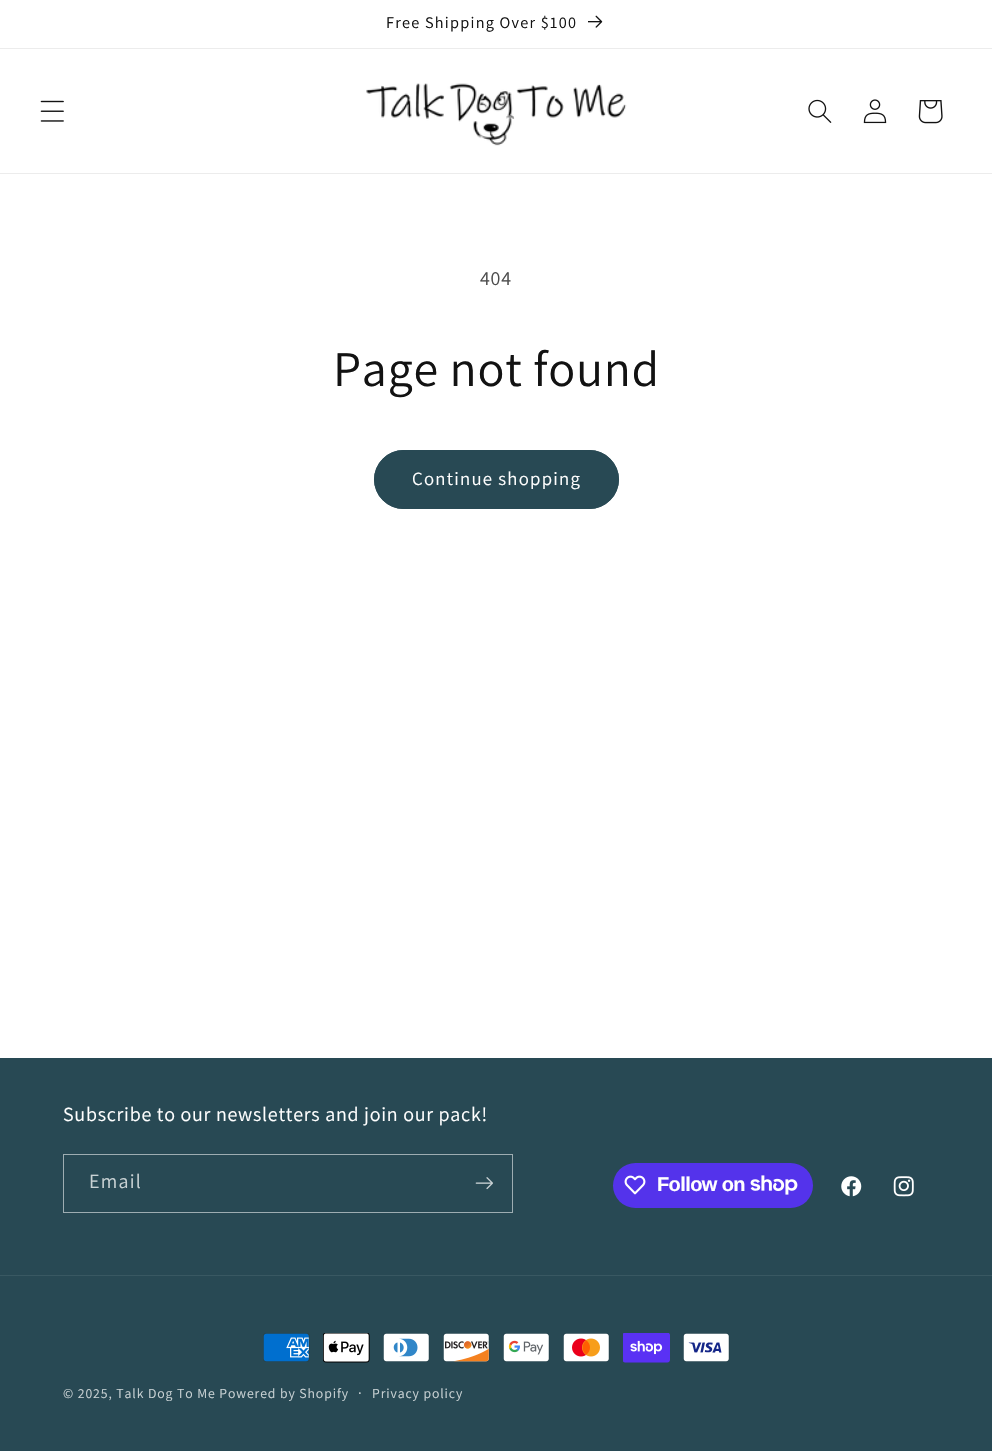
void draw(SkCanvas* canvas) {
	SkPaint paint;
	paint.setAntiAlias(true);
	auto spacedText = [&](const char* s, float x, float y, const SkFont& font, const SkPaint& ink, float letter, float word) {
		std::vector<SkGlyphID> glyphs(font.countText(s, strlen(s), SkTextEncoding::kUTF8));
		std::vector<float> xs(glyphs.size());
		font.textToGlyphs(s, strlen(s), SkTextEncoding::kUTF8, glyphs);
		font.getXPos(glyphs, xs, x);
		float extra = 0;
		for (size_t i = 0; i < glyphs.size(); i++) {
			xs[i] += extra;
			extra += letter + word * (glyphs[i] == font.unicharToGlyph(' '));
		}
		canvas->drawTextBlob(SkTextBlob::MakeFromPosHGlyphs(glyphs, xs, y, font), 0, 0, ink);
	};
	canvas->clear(0xffffffff);
	paint.setColor(0xffececec);
	canvas->drawRect(SkRect::MakeXYWH(0, 48, 992, 1), paint);
	SkFont f1(fontMgr->matchFamilyStyle("Assistant", SkFontStyle::Normal()), 16.25);
	f1.setSubpixel(true);
	paint.setColor(0xff121212);
	spacedText("Free Shipping Over $100", 386, 28, f1, paint, 1.25, 0);
	canvas->drawImageRect(SkImages::DeferredFromEncodedData(SkData::MakeFromFileName("img1.png")), SkRect::MakeXYWH(588, 15, 15, 13), SkSamplingOptions());
	paint.setColor(0xffececec);
	canvas->drawRect(SkRect::MakeXYWH(0, 173, 992, 1), paint);
	canvas->drawImageRect(SkImages::DeferredFromEncodedData(SkData::MakeFromFileName("img2.png")), SkRect::MakeXYWH(40, 100, 24, 22), SkSamplingOptions());
	canvas->drawImageRect(SkImages::DeferredFromEncodedData(SkData::MakeFromFileName("img3.png")), SkRect::MakeXYWH(366, 83, 261, 63), SkSamplingOptions());
	canvas->drawImageRect(SkImages::DeferredFromEncodedData(SkData::MakeFromFileName("img4.png")), SkRect::MakeXYWH(808, 99, 24, 24), SkSamplingOptions());
	canvas->drawImageRect(SkImages::DeferredFromEncodedData(SkData::MakeFromFileName("img5.png")), SkRect::MakeXYWH(863, 99, 24, 25), SkSamplingOptions());
	canvas->drawImageRect(SkImages::DeferredFromEncodedData(SkData::MakeFromFileName("img6.png")), SkRect::MakeXYWH(918, 100, 25, 24), SkSamplingOptions());
	SkFont f2(fontMgr->matchFamilyStyle("Assistant", SkFontStyle::Normal()), 20);
	f2.setSubpixel(true);
	paint.setColor(0xff4d4d4d);
	spacedText("404", 480, 285, f2, paint, 0.75, 0);
	SkFont f3(fontMgr->matchFamilyStyle("Assistant", SkFontStyle::Normal()), 50);
	f3.setSubpixel(true);
	paint.setColor(0xff121212);
	spacedText("Page not found", 333, 386, f3, paint, 0.75, 0);
	paint.setColor(0xff284954);
	canvas->drawRoundRect(SkRect::MakeXYWH(374, 450, 245, 59), 29.5, 29.5, paint);
	paint.setStroke(true);
	paint.setStrokeWidth(1);
	canvas->drawRoundRect(SkRect::MakeXYWH(374.5, 450.5, 244, 58), 29, 29, paint);
	SkFont f4(fontMgr->matchFamilyStyle("Assistant", SkFontStyle::Normal()), 18.75);
	f4.setSubpixel(true);
	paint.setStroke(false);
	paint.setColor(0xffffffff);
	spacedText("Continue shopping", 412, 485, f4, paint, 1.25, 0);
	paint.setColor(0xff284954);
	canvas->drawRect(SkRect::MakeXYWH(0, 1058, 992, 393), paint);
	paint.setColor(0xffffffff);
	spacedText("Subscribe to our newsletters and join our pack!", 63, 1121, f2, paint, 0.75, 0);
	paint.setStroke(true);
	paint.setColor(0xff9eadb2);
	canvas->drawRect(SkRect::MakeXYWH(63.5, 1154.5, 449, 58), paint);
	paint.setStroke(false);
	paint.setColor(0xffc9d2d4);
	spacedText("Email", 89, 1188, f2, paint, 1.25, 0);
	canvas->drawImageRect(SkImages::DeferredFromEncodedData(SkData::MakeFromFileName("img7.png")), SkRect::MakeXYWH(475, 1177, 18, 13), SkSamplingOptions());
	paint.setColor(0xff5433eb);
	canvas->drawRoundRect(SkRect::MakeXYWH(613, 1163, 200, 45), 22.5, 22.5, paint);
	canvas->drawImageRect(SkImages::DeferredFromEncodedData(SkData::MakeFromFileName("img8.png")), SkRect::MakeXYWH(624, 1175, 22, 20), SkSamplingOptions());
	SkFont f5(fontMgr->matchFamilyStyle("Liberation Sans", SkFontStyle::Bold()), 20);
	f5.setSubpixel(true);
	paint.setColor(0xffffffff);
	spacedText("Follow on", 657, 1191, f5, paint, -0.6, 0);
	canvas->drawImageRect(SkImages::DeferredFromEncodedData(SkData::MakeFromFileName("img9.png")), SkRect::MakeXYWH(750, 1175, 48, 20), SkSamplingOptions());
	canvas->drawImageRect(SkImages::DeferredFromEncodedData(SkData::MakeFromFileName("img10.png")), SkRect::MakeXYWH(841, 1176, 21, 21), SkSamplingOptions());
	canvas->drawImageRect(SkImages::DeferredFromEncodedData(SkData::MakeFromFileName("img11.png")), SkRect::MakeXYWH(893, 1176, 21, 21), SkSamplingOptions());
	paint.setColor(0xff395862);
	canvas->drawRect(SkRect::MakeXYWH(0, 1275, 992, 1), paint);
	canvas->drawImageRect(SkImages::DeferredFromEncodedData(SkData::MakeFromFileName("img12.png")), SkRect::MakeXYWH(263, 1333, 47, 29), SkSamplingOptions());
	canvas->drawImageRect(SkImages::DeferredFromEncodedData(SkData::MakeFromFileName("img13.png")), SkRect::MakeXYWH(323, 1333, 47, 30), SkSamplingOptions());
	canvas->drawImageRect(SkImages::DeferredFromEncodedData(SkData::MakeFromFileName("img14.png")), SkRect::MakeXYWH(383, 1333, 47, 29), SkSamplingOptions());
	canvas->drawImageRect(SkImages::DeferredFromEncodedData(SkData::MakeFromFileName("img15.png")), SkRect::MakeXYWH(443, 1333, 47, 29), SkSamplingOptions());
	canvas->drawImageRect(SkImages::DeferredFromEncodedData(SkData::MakeFromFileName("img16.png")), SkRect::MakeXYWH(503, 1333, 47, 29), SkSamplingOptions());
	canvas->drawImageRect(SkImages::DeferredFromEncodedData(SkData::MakeFromFileName("img17.png")), SkRect::MakeXYWH(563, 1333, 47, 29), SkSamplingOptions());
	canvas->drawImageRect(SkImages::DeferredFromEncodedData(SkData::MakeFromFileName("img18.png")), SkRect::MakeXYWH(623, 1333, 47, 30), SkSamplingOptions());
	canvas->drawImageRect(SkImages::DeferredFromEncodedData(SkData::MakeFromFileName("img19.png")), SkRect::MakeXYWH(683, 1333, 47, 29), SkSamplingOptions());
	SkFont f6(fontMgr->matchFamilyStyle("Assistant", SkFontStyle::Normal()), 13.75);
	f6.setSubpixel(true);
	paint.setColor(0xffc9d2d4);
	spacedText("© 2025, Talk Dog To Me Powered by Shopify", 63, 1398, f6, paint, 0.9, 0);
	SkFont f7(fontMgr->matchFamilyStyle("Assistant", SkFontStyle::Normal()), 15);
	f7.setSubpixel(true);
	spacedText("·", 358, 1398, f7, paint, 0.9, 0);
	spacedText("Privacy policy", 372, 1398, f6, paint, 0.9, 0);
}
